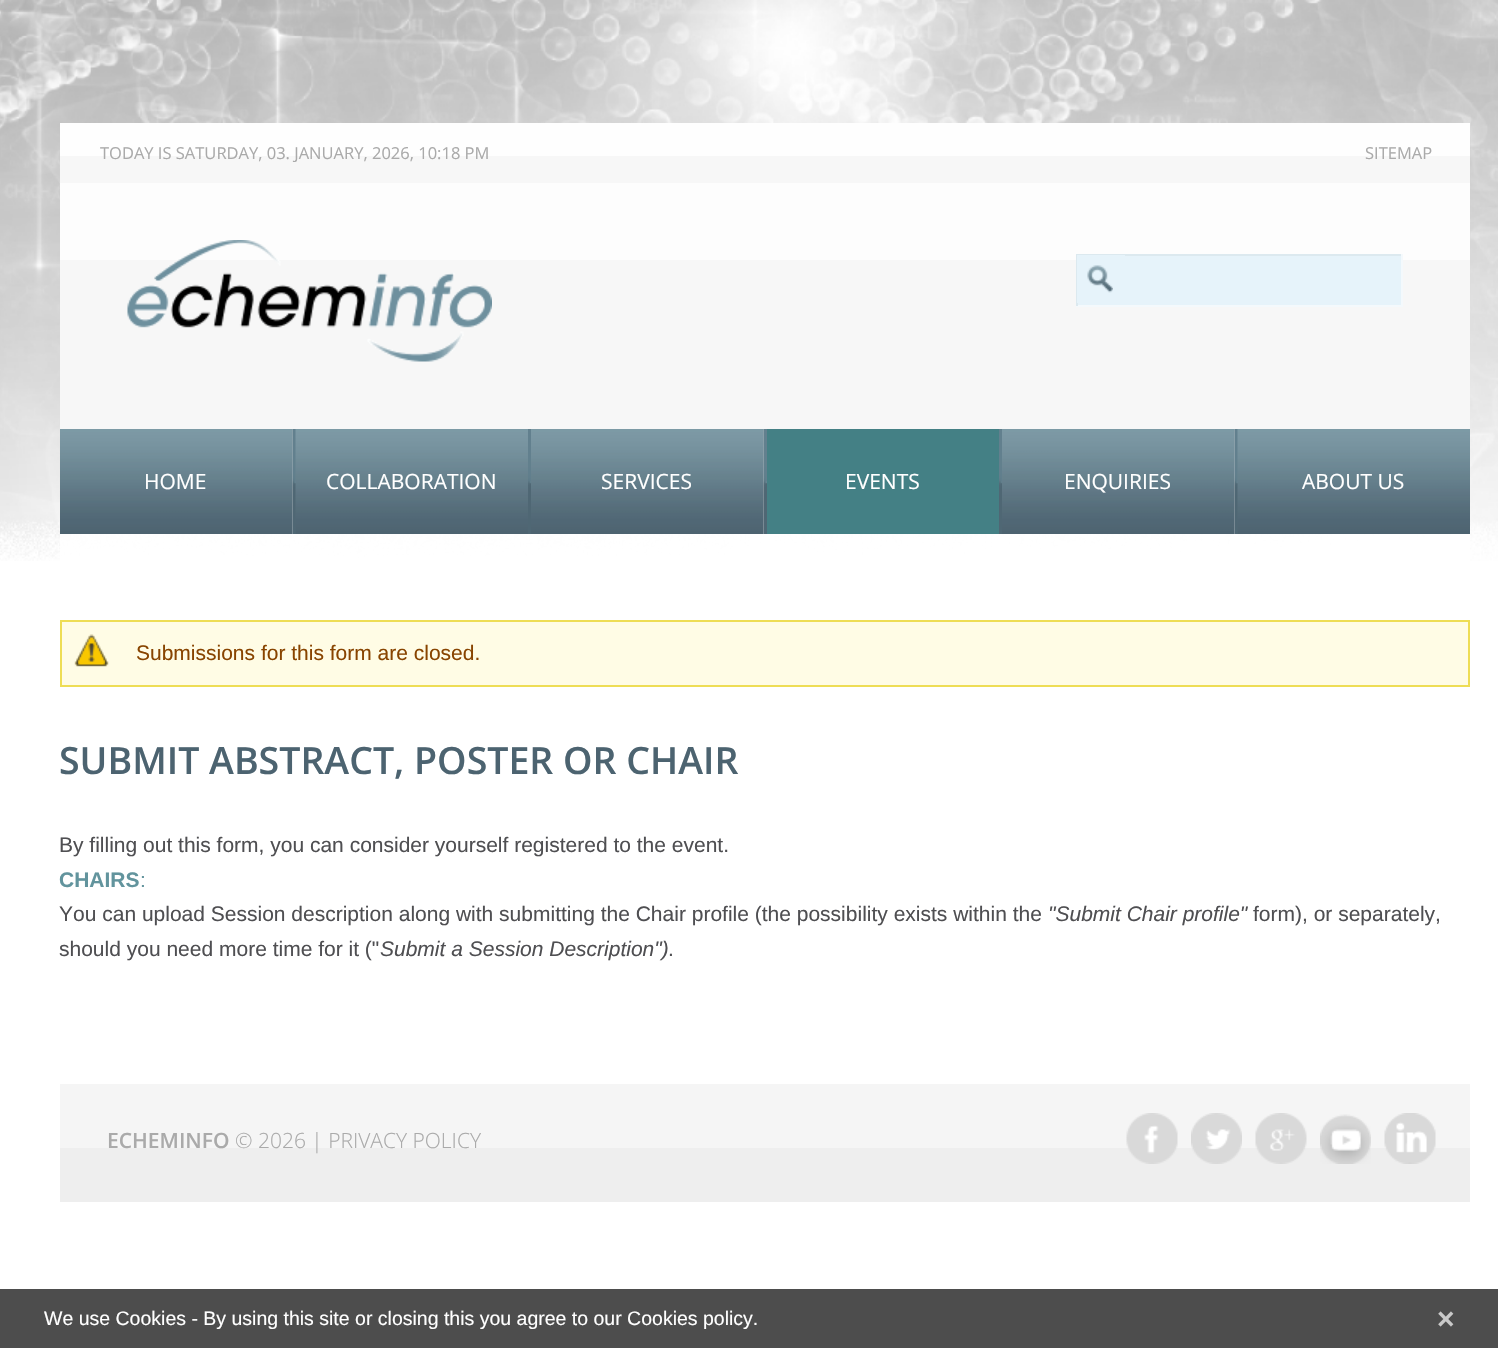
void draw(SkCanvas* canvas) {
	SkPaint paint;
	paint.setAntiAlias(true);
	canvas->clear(0xffffffff);
	canvas->drawImageRect(SkImages::DeferredFromEncodedData(SkData::MakeFromFileName("img1.png")), SkRect::MakeXYWH(0, 0, 1498, 561), SkSamplingOptions());
	paint.setColor(0xfff7f7f7);
	canvas->drawRect(SkRect::MakeXYWH(60, 156, 1410, 27), paint);
	paint.setColor(0xfffefefe);
	canvas->drawRect(SkRect::MakeXYWH(60, 123, 1410, 33), paint);
	SkFont f1(fontMgr->matchFamilyStyle("Open Sans", SkFontStyle::Normal()), 16.5);
	f1.setSubpixel(true);
	paint.setColor(0xffaaaaaa);
	canvas->drawString("TODAY IS SATURDAY, 03. JANUARY, 2026, 10:18 PM", 100, 159, f1, paint);
	canvas->drawString("SITEMAP", 1365, 159, f1, paint);
	paint.setColor(0xfff7f7f7);
	canvas->drawRect(SkRect::MakeXYWH(60, 260, 1410, 169), paint);
	paint.setColor(0xfffdfdfd);
	canvas->drawRect(SkRect::MakeXYWH(60, 183, 1410, 77), paint);
	canvas->drawImageRect(SkImages::DeferredFromEncodedData(SkData::MakeFromFileName("img2.png")), SkRect::MakeXYWH(127, 240, 365, 122), SkSamplingOptions());
	paint.setColor(0xffe6f3fa);
	canvas->drawRect(SkRect::MakeXYWH(1078, 256, 323, 49), paint);
	paint.setColor(0xffdce9ef);
	canvas->drawRect(SkRect::MakeXYWH(1076, 254, 327, 2), paint);
	paint.setColor(0xfff4f9fc);
	canvas->drawRect(SkRect::MakeXYWH(1401, 254, 2, 52), paint);
	canvas->drawRect(SkRect::MakeXYWH(1076, 305, 327, 2), paint);
	paint.setColor(0xffdce9ef);
	canvas->drawRect(SkRect::MakeXYWH(1076, 254, 2, 52), paint);
	paint.setColor(0xffe6f3fa);
	canvas->drawRect(SkRect::MakeXYWH(1077, 255, 48, 48), paint);
	canvas->drawImageRect(SkImages::DeferredFromEncodedData(SkData::MakeFromFileName("img3.png")), SkRect::MakeXYWH(1087, 265, 26, 28), SkSamplingOptions());
	canvas->drawImageRect(SkImages::DeferredFromEncodedData(SkData::MakeFromFileName("img4.png")), SkRect::MakeXYWH(60, 429, 233, 105), SkSamplingOptions());
	SkFont f2(fontMgr->matchFamilyStyle("Open Sans", SkFontStyle::Normal()), 21);
	f2.setSubpixel(true);
	paint.setColor(0xffffffff);
	canvas->drawString("HOME", 144, 489, f2, paint);
	canvas->drawImageRect(SkImages::DeferredFromEncodedData(SkData::MakeFromFileName("img5.png")), SkRect::MakeXYWH(292, 429, 4, 105), SkSamplingOptions());
	canvas->drawImageRect(SkImages::DeferredFromEncodedData(SkData::MakeFromFileName("img6.png")), SkRect::MakeXYWH(295, 429, 233, 105), SkSamplingOptions());
	canvas->drawString("COLLABORATION", 326, 489, f2, paint);
	canvas->drawImageRect(SkImages::DeferredFromEncodedData(SkData::MakeFromFileName("img7.png")), SkRect::MakeXYWH(528, 429, 3, 105), SkSamplingOptions());
	canvas->drawImageRect(SkImages::DeferredFromEncodedData(SkData::MakeFromFileName("img8.png")), SkRect::MakeXYWH(531, 429, 233, 105), SkSamplingOptions());
	canvas->drawString("SERVICES", 601, 489, f2, paint);
	canvas->drawImageRect(SkImages::DeferredFromEncodedData(SkData::MakeFromFileName("img5.png")), SkRect::MakeXYWH(763, 429, 4, 105), SkSamplingOptions());
	paint.setColor(0xff448085);
	canvas->drawRect(SkRect::MakeXYWH(767, 429, 232, 105), paint);
	paint.setColor(0xffffffff);
	canvas->drawString("EVENTS", 845, 489, f2, paint);
	canvas->drawImageRect(SkImages::DeferredFromEncodedData(SkData::MakeFromFileName("img7.png")), SkRect::MakeXYWH(999, 429, 3, 105), SkSamplingOptions());
	canvas->drawImageRect(SkImages::DeferredFromEncodedData(SkData::MakeFromFileName("img9.png")), SkRect::MakeXYWH(1002, 429, 233, 105), SkSamplingOptions());
	canvas->drawString("ENQUIRIES", 1064, 489, f2, paint);
	canvas->drawImageRect(SkImages::DeferredFromEncodedData(SkData::MakeFromFileName("img5.png")), SkRect::MakeXYWH(1234, 429, 4, 105), SkSamplingOptions());
	canvas->drawImageRect(SkImages::DeferredFromEncodedData(SkData::MakeFromFileName("img10.png")), SkRect::MakeXYWH(1237, 429, 233, 105), SkSamplingOptions());
	canvas->drawString("ABOUT US", 1302, 489, f2, paint);
	paint.setColor(0xdbffffff);
	canvas->drawRect(SkRect::MakeXYWH(60, 534, 1410, 27), paint);
	paint.setColor(0xfffffce5);
	canvas->drawRect(SkRect::MakeXYWH(62, 622, 1406, 63), paint);
	canvas->drawImageRect(SkImages::DeferredFromEncodedData(SkData::MakeFromFileName("img11.png")), SkRect::MakeXYWH(74, 634, 35, 33), SkSamplingOptions());
	paint.setStroke(true);
	paint.setStrokeWidth(2);
	paint.setColor(0xffeedd55);
	canvas->drawRect(SkRect::MakeXYWH(61, 621, 1408, 65), paint);
	SkFont f3(fontMgr->matchFamilyStyle("Liberation Sans", SkFontStyle::Normal()), 21);
	f3.setSubpixel(true);
	paint.setStroke(false);
	paint.setColor(0xff884400);
	canvas->drawString("Submissions for this form are closed.", 136, 660, f3, paint);
	SkFont f4(fontMgr->matchFamilyStyle("Open Sans", SkFontStyle(600, SkFontStyle::kNormal_Width, SkFontStyle::kUpright_Slant)), 37.5);
	f4.setSubpixel(true);
	paint.setColor(0xff4c6370);
	canvas->drawString("SUBMIT ABSTRACT, POSTER OR CHAIR", 59, 774, f4, paint);
	paint.setColor(0xff4f4f52);
	canvas->drawString("By filling out this form, you can consider yourself registered to the event.", 59, 852, f3, paint);
	SkFont f5(fontMgr->matchFamilyStyle("Liberation Sans", SkFontStyle::Bold()), 21);
	f5.setSubpixel(true);
	paint.setColor(0xff62949d);
	canvas->drawString("CHAIRS", 59, 887, f5, paint);
	canvas->drawString(":", 140, 887, f3, paint);
	paint.setColor(0xff4f4f52);
	canvas->drawString("You can upload Session description along with submitting the Chair profile (the possibility exists within the", 59, 921, f3, paint);
	SkFont f6(fontMgr->matchFamilyStyle("Liberation Sans", SkFontStyle::Italic()), 21);
	f6.setSubpixel(true);
	canvas->drawString("\"Submit Chair profile\"", 1048, 921, f6, paint);
	canvas->drawString("form), or separately,", 1253, 921, f3, paint);
	canvas->drawString("should you need more time for it (\"", 59, 956, f3, paint);
	canvas->drawString("Submit a Session Description\")", 380, 956, f6, paint);
	canvas->drawString(".", 668, 956, f3, paint);
	paint.setColor(0xffeeeeee);
	canvas->drawRect(SkRect::MakeXYWH(60, 1148, 1410, 54), paint);
	paint.setColor(0xfff5f5f5);
	canvas->drawRect(SkRect::MakeXYWH(60, 1084, 1410, 64), paint);
	SkFont f7(fontMgr->matchFamilyStyle("Open Sans", SkFontStyle(600, SkFontStyle::kNormal_Width, SkFontStyle::kUpright_Slant)), 21);
	f7.setSubpixel(true);
	paint.setColor(0xffaaaaaa);
	canvas->drawString("ECHEMINFO", 107, 1148, f7, paint);
	SkFont f8(fontMgr->matchFamilyStyle("Open Sans", SkFontStyle(300, SkFontStyle::kNormal_Width, SkFontStyle::kUpright_Slant)), 21);
	f8.setSubpixel(true);
	canvas->drawString("© 2026 | PRIVACY POLICY", 235, 1148, f8, paint);
	canvas->drawImageRect(SkImages::DeferredFromEncodedData(SkData::MakeFromFileName("img12.png")), SkRect::MakeXYWH(1126, 1113, 52, 51), SkSamplingOptions());
	canvas->drawImageRect(SkImages::DeferredFromEncodedData(SkData::MakeFromFileName("img13.png")), SkRect::MakeXYWH(1191, 1113, 51, 51), SkSamplingOptions());
	canvas->drawImageRect(SkImages::DeferredFromEncodedData(SkData::MakeFromFileName("img14.png")), SkRect::MakeXYWH(1255, 1113, 52, 51), SkSamplingOptions());
	canvas->drawImageRect(SkImages::DeferredFromEncodedData(SkData::MakeFromFileName("img15.png")), SkRect::MakeXYWH(1320, 1114, 51, 50), SkSamplingOptions());
	canvas->drawImageRect(SkImages::DeferredFromEncodedData(SkData::MakeFromFileName("img16.png")), SkRect::MakeXYWH(1384, 1113, 52, 51), SkSamplingOptions());
	paint.setColor(0xff4d4d4d);
	canvas->drawRect(SkRect::MakeXYWH(0, 1289, 1498, 59), paint);
	SkFont f9(fontMgr->matchFamilyStyle("Liberation Sans", SkFontStyle::Normal()), 19.5);
	f9.setSubpixel(true);
	paint.setColor(0xffffffff);
	canvas->drawString("We use Cookies - By using this site or closing this you agree to our Cookies policy.", 44, 1325, f9, paint);
	SkFont f10(fontMgr->matchFamilyStyle("Liberation Sans", SkFontStyle::Bold()), 30);
	f10.setSubpixel(true);
	paint.setColor(0xffc9c9c9);
	canvas->drawString("×", 1437, 1329, f10, paint);
}
